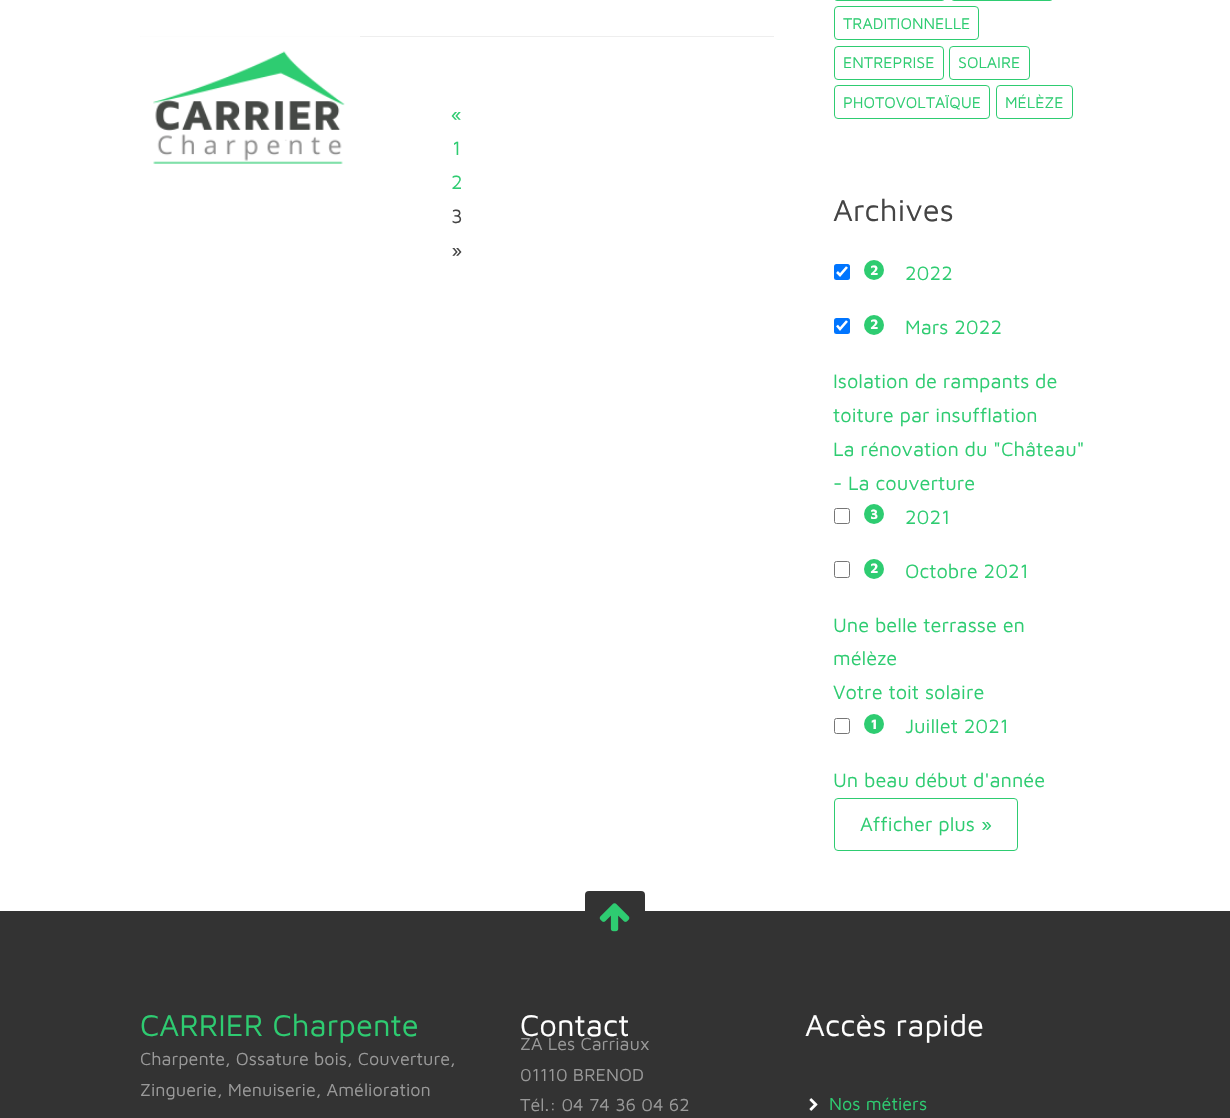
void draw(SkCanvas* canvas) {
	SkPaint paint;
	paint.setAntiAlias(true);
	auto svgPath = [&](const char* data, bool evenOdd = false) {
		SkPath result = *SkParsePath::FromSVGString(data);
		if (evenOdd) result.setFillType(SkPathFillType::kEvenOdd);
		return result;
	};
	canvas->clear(0xffffffff);
	paint.setColor(0xffeeeeee);
	canvas->drawRect(SkRect::MakeXYWH(140, 36, 634, 1), paint);
	canvas->drawImageRect(SkImages::DeferredFromEncodedData(SkData::MakeFromFileName("img1.png")), SkRect::MakeXYWH(140, 36, 220, 128), SkSamplingOptions());
	SkFont f1(fontMgr->matchFamilyStyle("Maven Pro", SkFontStyle::Normal()), 20);
	f1.setSubpixel(true);
	paint.setColor(0xff2ecc71);
	canvas->drawString("«", 451, 121, f1, paint);
	canvas->drawString("1", 452, 155, f1, paint);
	canvas->drawString("2", 451, 189, f1, paint);
	paint.setColor(0xff444444);
	canvas->drawString("3", 451, 223, f1, paint);
	canvas->drawString("»", 451, 257, f1, paint);
	paint.setStroke(true);
	paint.setStrokeWidth(1);
	paint.setColor(0xff2ecc71);
	canvas->drawRoundRect(SkRect::MakeXYWH(834.5, -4.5, 110, 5), 3.5, 3.5, paint);
	canvas->drawRoundRect(SkRect::MakeXYWH(951.5, -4.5, 101, 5), 3.5, 3.5, paint);
	canvas->drawRoundRect(SkRect::MakeXYWH(834.5, 6.5, 144, 33), 3.5, 3.5, paint);
	SkFont f2(fontMgr->matchFamilyStyle("Maven Pro", SkFontStyle::Normal()), 16);
	f2.setSubpixel(true);
	paint.setStroke(false);
	canvas->drawString("TRADITIONNELLE", 843, 29, f2, paint);
	paint.setStroke(true);
	canvas->drawRoundRect(SkRect::MakeXYWH(834.5, 46.5, 109, 33), 3.5, 3.5, paint);
	paint.setStroke(false);
	canvas->drawString("ENTREPRISE", 843, 68, f2, paint);
	paint.setStroke(true);
	canvas->drawRoundRect(SkRect::MakeXYWH(949.5, 46.5, 80, 33), 3.5, 3.5, paint);
	paint.setStroke(false);
	canvas->drawString("SOLAIRE", 958, 68, f2, paint);
	paint.setStroke(true);
	canvas->drawRoundRect(SkRect::MakeXYWH(834.5, 85.5, 155, 33), 3.5, 3.5, paint);
	paint.setStroke(false);
	canvas->drawString("PHOTOVOLTAÏQUE", 843, 108, f2, paint);
	paint.setStroke(true);
	canvas->drawRoundRect(SkRect::MakeXYWH(996.5, 85.5, 76, 33), 3.5, 3.5, paint);
	paint.setStroke(false);
	canvas->drawString("MÉLÈZE", 1005, 108, f2, paint);
	SkFont f3(fontMgr->matchFamilyStyle("Maven Pro", SkFontStyle::Normal()), 31);
	f3.setSubpixel(true);
	paint.setColor(0xff444444);
	canvas->drawString("Archives", 833, 221, f3, paint);
	paint.setColor(0xff0075ff);
	canvas->drawRoundRect(SkRect::MakeXYWH(834, 264, 16, 16), 2.5, 2.5, paint);
	paint.setStroke(true);
	paint.setStrokeWidth(2.6);
	paint.setColor(0xffffffff);
	canvas->drawPath(svgPath("M837 272L840 275L847 267"), paint);
	paint.setStroke(false);
	paint.setColor(0xff2ecc71);
	canvas->drawCircle(874, 270, 10, paint);
	SkFont f4(fontMgr->matchFamilyStyle("Maven Pro", SkFontStyle::Bold()), 14);
	f4.setSubpixel(true);
	paint.setColor(0xffffffff);
	canvas->drawString("2", 870, 275, f4, paint);
	paint.setColor(0xff2ecc71);
	canvas->drawString("2022", 905, 280, f1, paint);
	paint.setColor(0xff0075ff);
	canvas->drawRoundRect(SkRect::MakeXYWH(834, 318, 16, 16), 2.5, 2.5, paint);
	paint.setStroke(true);
	paint.setColor(0xffffffff);
	canvas->drawPath(svgPath("M837 325.5L840 329L847 321"), paint);
	paint.setStroke(false);
	paint.setColor(0xff2ecc71);
	canvas->drawCircle(874, 325, 10, paint);
	paint.setColor(0xffffffff);
	canvas->drawString("2", 870, 329, f4, paint);
	paint.setColor(0xff2ecc71);
	canvas->drawString("Mars 2022", 905, 334, f1, paint);
	canvas->drawString("Isolation de rampants de", 833, 388, f1, paint);
	canvas->drawString("toiture par insufflation", 833, 422, f1, paint);
	canvas->drawString("La rénovation du \"Château\"", 833, 456, f1, paint);
	canvas->drawString("- La couverture", 833, 490, f1, paint);
	paint.setStroke(true);
	paint.setStrokeWidth(1);
	paint.setColor(0xff767676);
	canvas->drawRoundRect(SkRect::MakeXYWH(834.5, 508.5, 15, 15), 2, 2, paint);
	paint.setStroke(false);
	paint.setColor(0xff2ecc71);
	canvas->drawCircle(874, 514, 10, paint);
	paint.setColor(0xffffffff);
	canvas->drawString("3", 870, 519, f4, paint);
	paint.setColor(0xff2ecc71);
	canvas->drawString("2021", 905, 524, f1, paint);
	paint.setStroke(true);
	paint.setColor(0xff767676);
	canvas->drawRoundRect(SkRect::MakeXYWH(834.5, 561.5, 15, 16), 2, 2, paint);
	paint.setStroke(false);
	paint.setColor(0xff2ecc71);
	canvas->drawCircle(874, 569, 10, paint);
	paint.setColor(0xffffffff);
	canvas->drawString("2", 870, 573, f4, paint);
	paint.setColor(0xff2ecc71);
	canvas->drawString("Octobre 2021", 905, 578, f1, paint);
	canvas->drawString("Une belle terrasse en", 833, 632, f1, paint);
	canvas->drawString("mélèze", 833, 665, f1, paint);
	canvas->drawString("Votre toit solaire", 833, 699, f1, paint);
	paint.setStroke(true);
	paint.setColor(0xff767676);
	canvas->drawRoundRect(SkRect::MakeXYWH(834.5, 718.5, 15, 15), 2, 2, paint);
	paint.setStroke(false);
	paint.setColor(0xff2ecc71);
	canvas->drawCircle(874, 724, 10, paint);
	paint.setColor(0xffffffff);
	canvas->drawString("1", 871, 729, f4, paint);
	paint.setColor(0xff2ecc71);
	canvas->drawString("Juillet 2021", 905, 733, f1, paint);
	canvas->drawString("Un beau début d'année", 833, 787, f1, paint);
	paint.setStroke(true);
	canvas->drawRoundRect(SkRect::MakeXYWH(834.5, 798.5, 183, 52), 3.5, 3.5, paint);
	paint.setStroke(false);
	canvas->drawString("Afficher plus »", 860, 831, f1, paint);
	paint.setColor(0xff333333);
	canvas->drawRect(SkRect::MakeXYWH(0, 911, 1230, 207), paint);
	canvas->drawRoundRect(SkRect::MakeXYWH(585, 891, 60, 40), 4, 4, paint);
	canvas->drawImageRect(SkImages::DeferredFromEncodedData(SkData::MakeFromFileName("img2.png")), SkRect::MakeXYWH(599, 903, 31, 29), SkSamplingOptions());
	paint.setColor(0xff2ecc71);
	canvas->drawString("CARRIER Charpente", 140, 1036, f3, paint);
	SkFont f5(fontMgr->matchFamilyStyle("Maven Pro", SkFontStyle::Normal()), 18);
	f5.setSubpixel(true);
	paint.setColor(0xff999999);
	canvas->drawString("Charpente, Ossature bois, Couverture,", 140, 1065, f5, paint);
	canvas->drawString("Zinguerie, Menuiserie, Amélioration", 140, 1096, f5, paint);
	paint.setColor(0xffffffff);
	canvas->drawString("Contact", 520, 1036, f3, paint);
	paint.setColor(0xff999999);
	canvas->drawString("ZA Les Carriaux", 520, 1050, f5, paint);
	canvas->drawString("01110 BRENOD", 520, 1081, f5, paint);
	canvas->drawString("Tél.: 04 74 36 04 62", 520, 1111, f5, paint);
	paint.setColor(0xffffffff);
	canvas->drawString("Accès rapide", 805, 1036, f3, paint);
	canvas->drawImageRect(SkImages::DeferredFromEncodedData(SkData::MakeFromFileName("img3.png")), SkRect::MakeXYWH(809, 1098, 9, 13), SkSamplingOptions());
	paint.setColor(0xff2ecc71);
	canvas->drawString("Nos métiers", 829, 1110, f5, paint);
}
